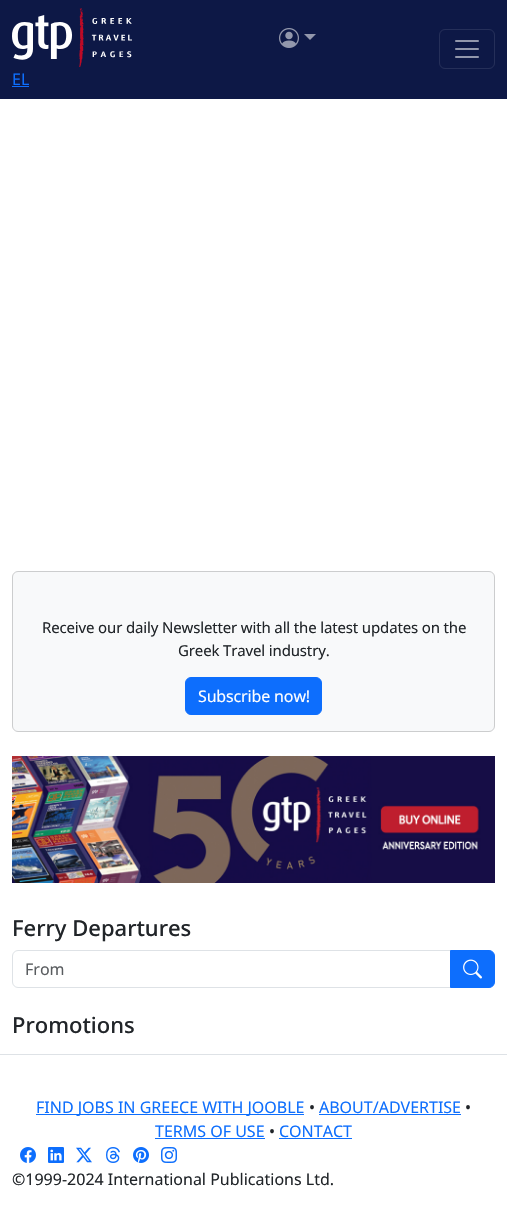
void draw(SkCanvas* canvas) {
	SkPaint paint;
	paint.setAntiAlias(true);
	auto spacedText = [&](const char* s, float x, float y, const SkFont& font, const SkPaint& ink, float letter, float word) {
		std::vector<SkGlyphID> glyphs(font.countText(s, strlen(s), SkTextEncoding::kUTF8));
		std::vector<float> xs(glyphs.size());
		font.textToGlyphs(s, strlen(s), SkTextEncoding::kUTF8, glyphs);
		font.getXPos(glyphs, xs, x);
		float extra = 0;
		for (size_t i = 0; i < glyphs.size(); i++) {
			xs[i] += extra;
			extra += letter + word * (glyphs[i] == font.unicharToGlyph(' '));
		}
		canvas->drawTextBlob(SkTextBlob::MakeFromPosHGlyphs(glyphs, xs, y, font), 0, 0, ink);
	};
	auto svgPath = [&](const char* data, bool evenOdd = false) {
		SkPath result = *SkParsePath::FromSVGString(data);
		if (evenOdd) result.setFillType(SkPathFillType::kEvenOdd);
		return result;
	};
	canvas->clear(0xffffffff);
	paint.setColor(0xff0d1846);
	canvas->drawRect(SkRect::MakeXYWH(0, 0, 507, 99), paint);
	canvas->drawImageRect(SkImages::DeferredFromEncodedData(SkData::MakeFromFileName("img1.png")), SkRect::MakeXYWH(279, 28, 20, 20), SkSamplingOptions());
	paint.setColor(0xff9297ac);
	canvas->drawPath(svgPath("M304 34H316L310 40Z"), paint);
	paint.setStroke(true);
	paint.setStrokeWidth(1);
	paint.setColor(0xff252f59);
	canvas->drawRoundRect(SkRect::MakeXYWH(439.5, 29.5, 55, 39), 5.5, 5.5, paint);
	canvas->drawImageRect(SkImages::DeferredFromEncodedData(SkData::MakeFromFileName("img2.png")), SkRect::MakeXYWH(455, 40, 24, 18), SkSamplingOptions());
	canvas->drawImageRect(SkImages::DeferredFromEncodedData(SkData::MakeFromFileName("img3.png")), SkRect::MakeXYWH(12, 8, 120, 59), SkSamplingOptions());
	SkFont f1(fontMgr->matchFamilyStyle("Noto Sans", SkFontStyle::Normal()), 16);
	f1.setSubpixel(true);
	paint.setStroke(false);
	paint.setColor(0xff0d6efd);
	canvas->drawString("EL", 12, 85, f1, paint);
	canvas->drawRect(SkRect::MakeXYWH(12, 86, 17, 1), paint);
	paint.setColor(0xfff8f9fa);
	canvas->drawRoundRect(SkRect::MakeXYWH(12.5, 571.5, 482, 160), 5.5, 5.5, paint);
	paint.setStroke(true);
	paint.setColor(0xffcccdce);
	canvas->drawRoundRect(SkRect::MakeXYWH(12.5, 571.5, 482, 160), 5.5, 5.5, paint);
	SkFont f2(fontMgr->matchFamilyStyle("Noto Sans", SkFontStyle::Normal()), 15);
	f2.setSubpixel(true);
	paint.setStroke(false);
	paint.setColor(0xff212529);
	spacedText("Receive our daily Newsletter with all the latest updates on the", 42, 633, f2, paint, -0.15, 0);
	spacedText("Greek Travel industry.", 178, 656, f2, paint, -0.15, 0);
	paint.setColor(0xff0d6efd);
	canvas->drawRoundRect(SkRect::MakeXYWH(185.5, 677.5, 136, 37), 5.5, 5.5, paint);
	paint.setStroke(true);
	canvas->drawRoundRect(SkRect::MakeXYWH(185.5, 677.5, 136, 37), 5.5, 5.5, paint);
	paint.setStroke(false);
	paint.setColor(0xffffffff);
	spacedText("Subscribe now!", 198, 702, f1, paint, -0.15, 0);
	canvas->drawImageRect(SkImages::DeferredFromEncodedData(SkData::MakeFromFileName("img4.png")), SkRect::MakeXYWH(12, 756, 483, 127), SkSamplingOptions());
	SkFont f3(fontMgr->matchFamilyStyle("Noto Sans", SkFontStyle(500, SkFontStyle::kNormal_Width, SkFontStyle::kUpright_Slant)), 22);
	f3.setSubpixel(true);
	paint.setColor(0xff212529);
	canvas->drawString("Ferry Departures", 12, 936, f3, paint);
	paint.setStroke(true);
	paint.setColor(0xffdee2e6);
	canvas->drawPath(svgPath("M18 950.5H450.5V987.5H18C15 987.5 12.5 985 12.5 982V956C12.5 953 15 950.5 18 950.5Z"), paint);
	paint.setStroke(false);
	paint.setColor(0xff595c5f);
	canvas->drawString("From", 25, 975, f1, paint);
	paint.setColor(0xff0d6efd);
	canvas->drawPath(svgPath("M450.5 950.5H489C492 950.5 494.5 953 494.5 956V982C494.5 985 492 987.5 489 987.5H450.5Z"), paint);
	paint.setStroke(true);
	canvas->drawPath(svgPath("M450.5 950.5H489C492 950.5 494.5 953 494.5 956V982C494.5 985 492 987.5 489 987.5H450.5Z"), paint);
	canvas->drawImageRect(SkImages::DeferredFromEncodedData(SkData::MakeFromFileName("img5.png")), SkRect::MakeXYWH(463, 959, 19, 20), SkSamplingOptions());
	paint.setStroke(false);
	paint.setColor(0xff212529);
	canvas->drawString("Promotions", 12, 1033, f3, paint);
	paint.setColor(0xffdee2e6);
	canvas->drawRect(SkRect::MakeXYWH(0, 1054, 507, 1), paint);
	paint.setColor(0xff0d6efd);
	canvas->drawRect(SkRect::MakeXYWH(36, 1114, 268, 1), paint);
	canvas->drawString("FIND JOBS IN GREECE WITH JOOBLE", 36, 1113, f1, paint);
	paint.setColor(0xff212529);
	canvas->drawString("•", 309, 1113, f1, paint);
	paint.setColor(0xff0d6efd);
	canvas->drawString("ABOUT/ADVERTISE", 319, 1113, f1, paint);
	canvas->drawRect(SkRect::MakeXYWH(319, 1114, 142, 1), paint);
	paint.setColor(0xff212529);
	canvas->drawString("•", 465, 1113, f1, paint);
	paint.setColor(0xff0d6efd);
	canvas->drawString("TERMS OF USE", 155, 1137, f1, paint);
	canvas->drawRect(SkRect::MakeXYWH(155, 1138, 110, 1), paint);
	paint.setColor(0xff212529);
	canvas->drawString("•", 269, 1137, f1, paint);
	paint.setColor(0xff0d6efd);
	canvas->drawString("CONTACT", 279, 1137, f1, paint);
	canvas->drawRect(SkRect::MakeXYWH(279, 1138, 73, 1), paint);
	canvas->drawImageRect(SkImages::DeferredFromEncodedData(SkData::MakeFromFileName("img6.png")), SkRect::MakeXYWH(20, 1147, 16, 16), SkSamplingOptions());
	canvas->drawImageRect(SkImages::DeferredFromEncodedData(SkData::MakeFromFileName("img7.png")), SkRect::MakeXYWH(48, 1147, 16, 16), SkSamplingOptions());
	canvas->drawImageRect(SkImages::DeferredFromEncodedData(SkData::MakeFromFileName("img8.png")), SkRect::MakeXYWH(76, 1147, 16, 16), SkSamplingOptions());
	canvas->drawImageRect(SkImages::DeferredFromEncodedData(SkData::MakeFromFileName("img9.png")), SkRect::MakeXYWH(106, 1147, 14, 16), SkSamplingOptions());
	canvas->drawImageRect(SkImages::DeferredFromEncodedData(SkData::MakeFromFileName("img10.png")), SkRect::MakeXYWH(133, 1147, 16, 16), SkSamplingOptions());
	canvas->drawImageRect(SkImages::DeferredFromEncodedData(SkData::MakeFromFileName("img11.png")), SkRect::MakeXYWH(161, 1147, 16, 16), SkSamplingOptions());
	paint.setColor(0xff212529);
	canvas->drawString("©1999-2024 International Publications Ltd.", 12, 1185, f1, paint);
}
